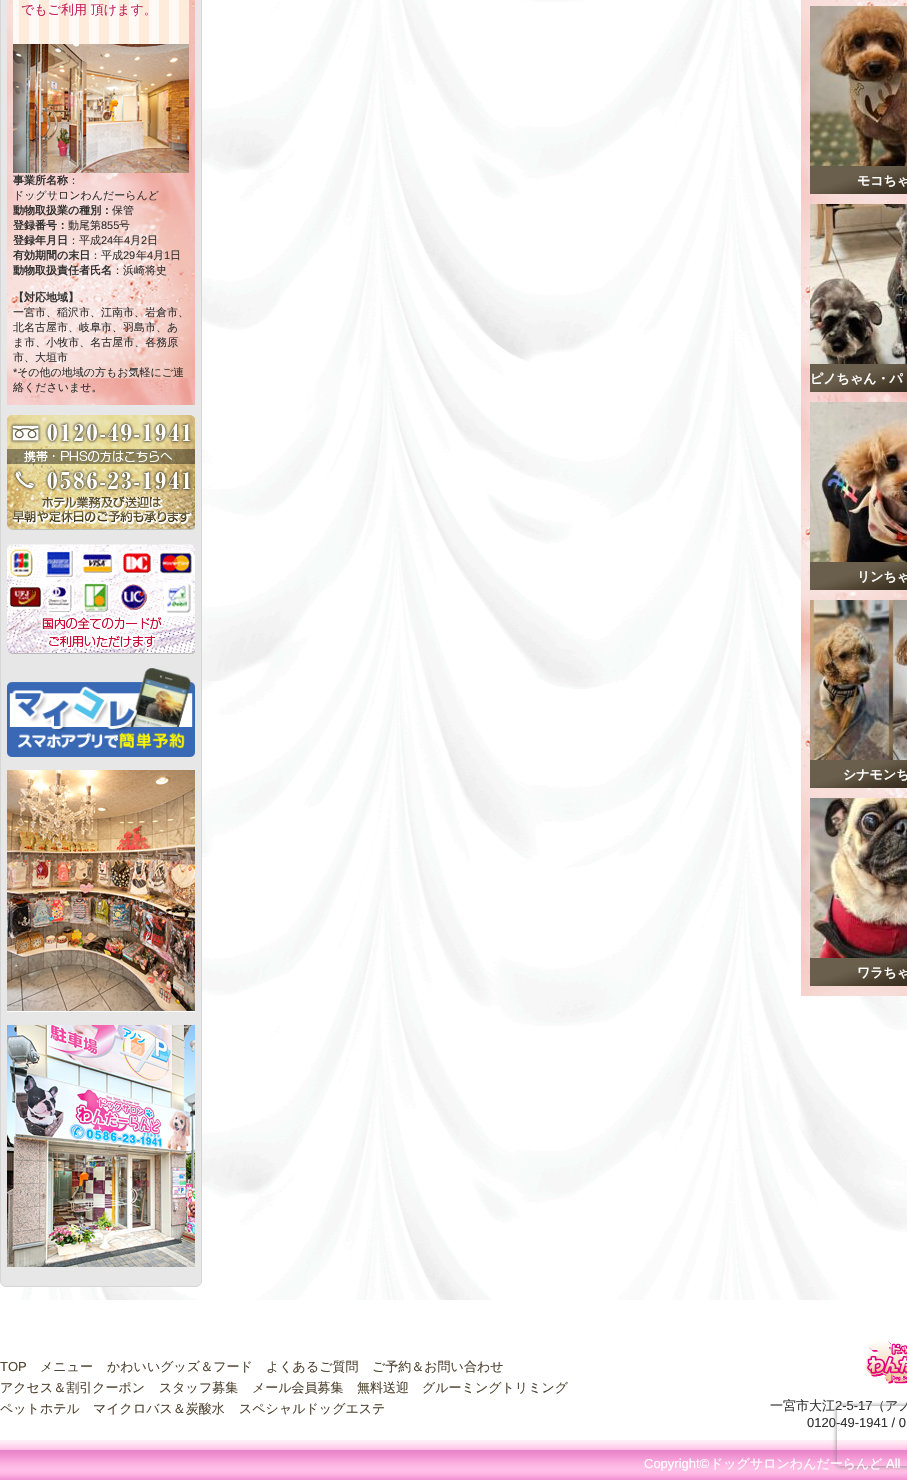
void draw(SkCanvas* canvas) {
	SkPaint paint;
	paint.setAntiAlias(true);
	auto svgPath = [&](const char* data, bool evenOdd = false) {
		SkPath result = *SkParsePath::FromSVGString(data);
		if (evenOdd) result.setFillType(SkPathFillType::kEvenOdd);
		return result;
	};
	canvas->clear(0xffffffff);
	canvas->drawImageRect(SkImages::DeferredFromEncodedData(SkData::MakeFromFileName("img1.png")), SkRect::MakeXYWH(0, 0, 907, 1300), SkSamplingOptions());
	paint.setColor(0xffe7e7e7);
	canvas->drawRoundRect(SkRect::MakeXYWH(0.5, -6.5, 201, 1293), 5.5, 5.5, paint);
	paint.setStroke(true);
	paint.setStrokeWidth(1);
	paint.setColor(0xffd6d6d6);
	canvas->drawRoundRect(SkRect::MakeXYWH(0.5, -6.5, 201, 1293), 5.5, 5.5, paint);
	canvas->drawImageRect(SkImages::DeferredFromEncodedData(SkData::MakeFromFileName("img2.png")), SkRect::MakeXYWH(7, 0, 188, 405), SkSamplingOptions());
	canvas->drawImageRect(SkImages::DeferredFromEncodedData(SkData::MakeFromFileName("img3.png")), SkRect::MakeXYWH(13, 0, 176, 44), SkSamplingOptions());
	SkFont f1(fontMgr->matchFamilyStyle("WenQuanYi Zen Hei", SkFontStyle(500, SkFontStyle::kNormal_Width, SkFontStyle::kUpright_Slant)), 13);
	f1.setSubpixel(true);
	paint.setStroke(false);
	paint.setColor(0xffc52361);
	canvas->drawString("でもご利用 頂けます。", 21, 14, f1, paint);
	canvas->drawImageRect(SkImages::DeferredFromEncodedData(SkData::MakeFromFileName("img4.png")), SkRect::MakeXYWH(13, 44, 176, 129), SkSamplingOptions());
	SkFont f2(fontMgr->matchFamilyStyle("WenQuanYi Zen Hei", SkFontStyle::Bold()), 11);
	f2.setSubpixel(true);
	paint.setColor(0xff333333);
	canvas->drawString("事業所名称", 13, 184, f2, paint);
	SkFont f3(fontMgr->matchFamilyStyle("WenQuanYi Zen Hei", SkFontStyle(500, SkFontStyle::kNormal_Width, SkFontStyle::kUpright_Slant)), 11);
	f3.setSubpixel(true);
	canvas->drawString("：", 68, 184, f3, paint);
	canvas->drawString("ドッグサロンわんだーらんど", 13, 199, f3, paint);
	canvas->drawString("動物取扱業の種別：", 13, 214, f2, paint);
	canvas->drawString("保管", 112, 214, f3, paint);
	canvas->drawString("登録番号：", 13, 229, f2, paint);
	canvas->drawString("動尾第", 68, 229, f3, paint);
	SkFont f4(fontMgr->matchFamilyStyle("Liberation Sans", SkFontStyle::Normal()), 11);
	f4.setSubpixel(true);
	canvas->drawString("855", 101, 229, f4, paint);
	canvas->drawString("号", 119, 229, f3, paint);
	canvas->drawString("登録年月日", 13, 244, f2, paint);
	canvas->drawString("：平成", 68, 244, f3, paint);
	canvas->drawString("24", 101, 244, f4, paint);
	canvas->drawString("年", 113, 244, f3, paint);
	canvas->drawString("4", 124, 244, f4, paint);
	canvas->drawString("月", 130, 244, f3, paint);
	canvas->drawString("2", 141, 244, f4, paint);
	canvas->drawString("日", 147, 244, f3, paint);
	canvas->drawString("有効期間の末日", 13, 259, f2, paint);
	canvas->drawString("：平成", 90, 259, f3, paint);
	canvas->drawString("29", 123, 259, f4, paint);
	canvas->drawString("年", 136, 259, f3, paint);
	canvas->drawString("4", 147, 259, f4, paint);
	canvas->drawString("月", 153, 259, f3, paint);
	canvas->drawString("1", 164, 259, f4, paint);
	canvas->drawString("日", 170, 259, f3, paint);
	canvas->drawString("動物取扱責任者氏名", 13, 274, f2, paint);
	canvas->drawString("：浜崎将史", 112, 274, f3, paint);
	canvas->drawString("【対応地域】", 13, 301, f2, paint);
	canvas->drawString("一宮市、稲沢市、江南市、岩倉市、", 13, 316, f3, paint);
	canvas->drawString("北名古屋市、岐阜市、羽島市、あ", 13, 331, f3, paint);
	canvas->drawString("ま市、小牧市、名古屋市、各務原", 13, 346, f3, paint);
	canvas->drawString("市、大垣市", 13, 361, f3, paint);
	canvas->drawString("*", 13, 376, f4, paint);
	canvas->drawString("その他の地域の方もお気軽にご連", 17, 376, f3, paint);
	canvas->drawString("絡くださいませ。", 13, 391, f3, paint);
	canvas->drawImageRect(SkImages::DeferredFromEncodedData(SkData::MakeFromFileName("img5.png")), SkRect::MakeXYWH(7, 415, 188, 115), SkSamplingOptions());
	canvas->drawImageRect(SkImages::DeferredFromEncodedData(SkData::MakeFromFileName("img6.png")), SkRect::MakeXYWH(7, 544, 188, 110), SkSamplingOptions());
	canvas->drawImageRect(SkImages::DeferredFromEncodedData(SkData::MakeFromFileName("img7.png")), SkRect::MakeXYWH(7, 668, 188, 89), SkSamplingOptions());
	canvas->drawImageRect(SkImages::DeferredFromEncodedData(SkData::MakeFromFileName("img8.png")), SkRect::MakeXYWH(7, 770, 188, 242), SkSamplingOptions());
	canvas->drawImageRect(SkImages::DeferredFromEncodedData(SkData::MakeFromFileName("img9.png")), SkRect::MakeXYWH(7, 1025, 188, 242), SkSamplingOptions());
	canvas->drawImageRect(SkImages::DeferredFromEncodedData(SkData::MakeFromFileName("img10.png")), SkRect::MakeXYWH(801, 0, 106, 996), SkSamplingOptions());
	canvas->drawImageRect(SkImages::DeferredFromEncodedData(SkData::MakeFromFileName("img11.png")), SkRect::MakeXYWH(810, 6, 97, 160), SkSamplingOptions());
	canvas->drawImageRect(SkImages::DeferredFromEncodedData(SkData::MakeFromFileName("img12.png")), SkRect::MakeXYWH(810, 166, 97, 28), SkSamplingOptions());
	SkFont f5(fontMgr->matchFamilyStyle("WenQuanYi Zen Hei", SkFontStyle::Bold()), 13);
	f5.setSubpixel(true);
	paint.setColor(0xffffffff);
	canvas->drawString("モコちゃ", 857, 185, f5, paint);
	canvas->drawImageRect(SkImages::DeferredFromEncodedData(SkData::MakeFromFileName("img13.png")), SkRect::MakeXYWH(810, 204, 97, 160), SkSamplingOptions());
	canvas->drawImageRect(SkImages::DeferredFromEncodedData(SkData::MakeFromFileName("img12.png")), SkRect::MakeXYWH(810, 364, 97, 28), SkSamplingOptions());
	canvas->drawString("ピノちゃん・パ", 810, 383, f5, paint);
	canvas->drawImageRect(SkImages::DeferredFromEncodedData(SkData::MakeFromFileName("img14.png")), SkRect::MakeXYWH(810, 402, 97, 160), SkSamplingOptions());
	canvas->drawImageRect(SkImages::DeferredFromEncodedData(SkData::MakeFromFileName("img12.png")), SkRect::MakeXYWH(810, 562, 97, 28), SkSamplingOptions());
	canvas->drawString("リンちゃ", 857, 581, f5, paint);
	canvas->drawImageRect(SkImages::DeferredFromEncodedData(SkData::MakeFromFileName("img15.png")), SkRect::MakeXYWH(810, 600, 97, 160), SkSamplingOptions());
	canvas->drawImageRect(SkImages::DeferredFromEncodedData(SkData::MakeFromFileName("img12.png")), SkRect::MakeXYWH(810, 760, 97, 28), SkSamplingOptions());
	canvas->drawString("シナモンち", 843, 779, f5, paint);
	canvas->drawImageRect(SkImages::DeferredFromEncodedData(SkData::MakeFromFileName("img16.png")), SkRect::MakeXYWH(810, 798, 97, 160), SkSamplingOptions());
	canvas->drawImageRect(SkImages::DeferredFromEncodedData(SkData::MakeFromFileName("img12.png")), SkRect::MakeXYWH(810, 958, 97, 28), SkSamplingOptions());
	canvas->drawString("ワラちゃ", 857, 977, f5, paint);
	canvas->drawImageRect(SkImages::DeferredFromEncodedData(SkData::MakeFromFileName("img17.png")), SkRect::MakeXYWH(866, 1338, 41, 46), SkSamplingOptions());
	SkFont f6(fontMgr->matchFamilyStyle("Liberation Sans", SkFontStyle::Normal()), 13);
	f6.setSubpixel(true);
	paint.setColor(0xff514533);
	canvas->drawString("TOP", 0, 1371, f6, paint);
	canvas->drawString("メニュー", 40, 1371, f1, paint);
	canvas->drawString("かわいいグッズ＆フード", 107, 1371, f1, paint);
	canvas->drawString("よくあるご質問", 266, 1371, f1, paint);
	canvas->drawString("ご予約＆お問い合わせ", 372, 1371, f1, paint);
	canvas->drawString("アクセス＆割引クーポン", 0, 1392, f1, paint);
	canvas->drawString("スタッフ募集", 159, 1392, f1, paint);
	canvas->drawString("メール会員募集", 252, 1392, f1, paint);
	canvas->drawString("無料送迎", 357, 1392, f1, paint);
	canvas->drawString("グルーミングトリミング", 422, 1392, f1, paint);
	canvas->drawString("ペットホテル", 0, 1413, f1, paint);
	canvas->drawString("マイクロバス＆炭酸水", 93, 1413, f1, paint);
	canvas->drawString("スペシャルドッグエステ", 239, 1413, f1, paint);
	paint.setColor(0xff333333);
	canvas->drawString("一宮市大江", 770, 1410, f1, paint);
	canvas->drawString("2-5-17", 835, 1410, f6, paint);
	canvas->drawString("（アノ", 872, 1410, f1, paint);
	canvas->drawString("0120-49-1941 / 0", 807, 1427, f6, paint);
	canvas->drawImageRect(SkImages::DeferredFromEncodedData(SkData::MakeFromFileName("img18.png")), SkRect::MakeXYWH(0, 1440, 907, 40), SkSamplingOptions());
	canvas->save();
	canvas->clipPath(svgPath("M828 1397H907V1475H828ZM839 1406H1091C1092 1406 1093 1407 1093 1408V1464C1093 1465 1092 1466 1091 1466H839C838 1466 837 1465 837 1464V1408C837 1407 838 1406 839 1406Z", true), true);
	paint.setColor(0xff808080);
	paint.setMaskFilter(SkMaskFilter::MakeBlur(kNormal_SkBlurStyle, 2.5));
	canvas->drawRoundRect(SkRect::MakeXYWH(837, 1406, 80, 60), 2, 2, paint);
	paint.setMaskFilter(nullptr);
	canvas->restore();
	paint.setColor(0xffffffff);
	canvas->drawString("Copyright©", 644, 1468, f6, paint);
	canvas->drawString("ドッグサロンわんだーらんど", 710, 1468, f1, paint);
	canvas->drawString("All", 886, 1468, f6, paint);
}
